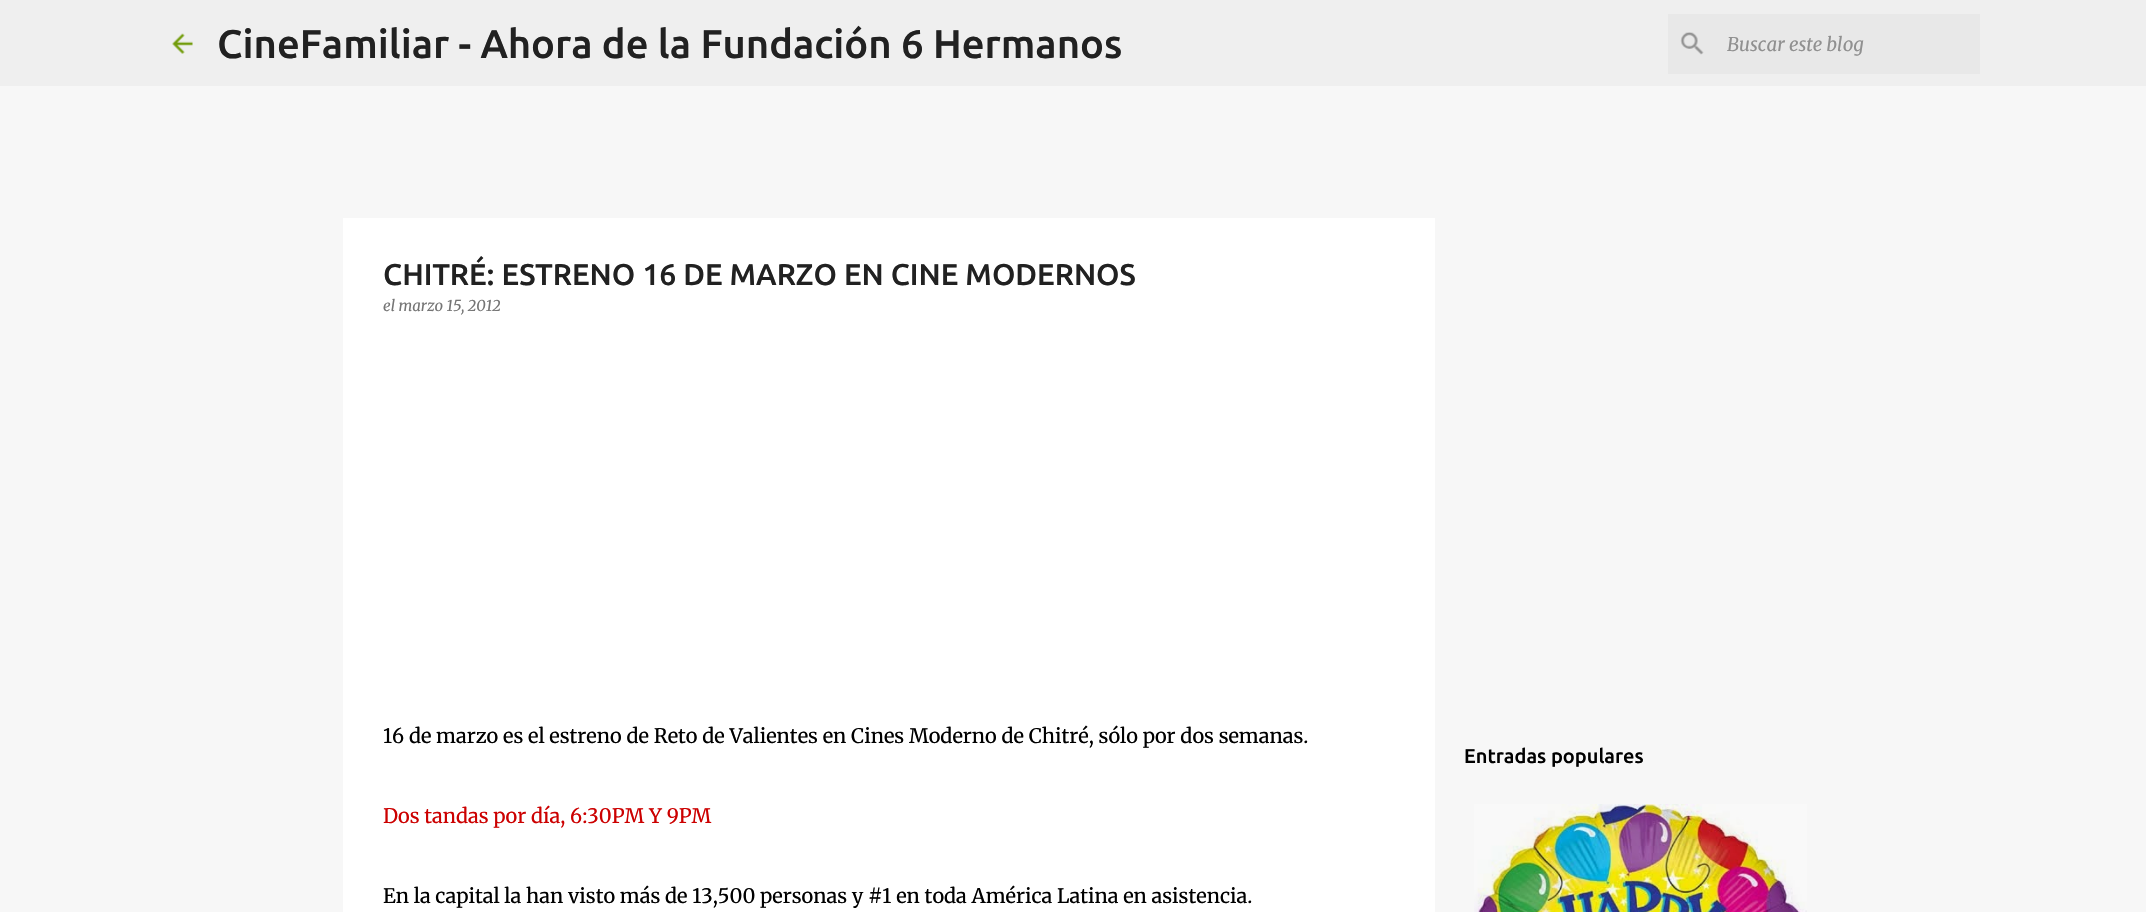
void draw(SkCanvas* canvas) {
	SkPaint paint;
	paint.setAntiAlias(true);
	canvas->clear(0xfff7f7f7);
	paint.setColor(0xffefefef);
	canvas->drawRect(SkRect::MakeXYWH(0, 0, 2146, 86), paint);
	canvas->drawImageRect(SkImages::DeferredFromEncodedData(SkData::MakeFromFileName("img1.png")), SkRect::MakeXYWH(172, 33, 21, 21), SkSamplingOptions());
	SkFont f1(fontMgr->matchFamilyStyle("Ubuntu", SkFontStyle(500, SkFontStyle::kNormal_Width, SkFontStyle::kUpright_Slant)), 40);
	f1.setSubpixel(true);
	paint.setColor(0xff212121);
	canvas->drawString("CineFamiliar - Ahora de la Fundación 6 Hermanos", 217, 58, f1, paint);
	paint.setColor(0xffe8e8e8);
	canvas->drawRect(SkRect::MakeXYWH(1668, 14, 312, 60), paint);
	canvas->drawImageRect(SkImages::DeferredFromEncodedData(SkData::MakeFromFileName("img2.png")), SkRect::MakeXYWH(1680, 32, 24, 23), SkSamplingOptions());
	SkFont f2(fontMgr->matchFamilyStyle("Merriweather", SkFontStyle(300, SkFontStyle::kNormal_Width, SkFontStyle::kItalic_Slant)), 18.75);
	f2.setSubpixel(true);
	paint.setColor(0xff909090);
	canvas->drawString("Buscar este blog", 1727, 51, f2, paint);
	paint.setColor(0xffffffff);
	canvas->drawRect(SkRect::MakeXYWH(343, 218, 1092, 694), paint);
	SkFont f3(fontMgr->matchFamilyStyle("Ubuntu", SkFontStyle(500, SkFontStyle::kNormal_Width, SkFontStyle::kUpright_Slant)), 30);
	f3.setSubpixel(true);
	paint.setColor(0xff212121);
	canvas->drawString("CHITRÉ: ESTRENO 16 DE MARZO EN CINE MODERNOS", 383, 285, f3, paint);
	SkFont f4(fontMgr->matchFamilyStyle("Merriweather", SkFontStyle(300, SkFontStyle::kNormal_Width, SkFontStyle::kItalic_Slant)), 15);
	f4.setSubpixel(true);
	paint.setColor(0xff757575);
	canvas->drawString("el marzo 15, 2012", 383, 311, f4, paint);
	SkFont f5(fontMgr->matchFamilyStyle("Merriweather", SkFontStyle(300, SkFontStyle::kNormal_Width, SkFontStyle::kUpright_Slant)), 20);
	f5.setSubpixel(true);
	paint.setColor(0xff000000);
	canvas->drawString("16 de marzo es el estreno de Reto de Valientes en Cines Moderno de Chitré, sólo por dos semanas.", 383, 743, f5, paint);
	paint.setColor(0xffcc0000);
	canvas->drawString("Dos tandas por día, 6:30PM Y 9PM", 383, 823, f5, paint);
	paint.setColor(0xff000000);
	canvas->drawString("En la capital la han visto más de 13,500 personas y #1 en toda América Latina en asistencia.", 383, 903, f5, paint);
	SkFont f6(fontMgr->matchFamilyStyle("Ubuntu", SkFontStyle(500, SkFontStyle::kNormal_Width, SkFontStyle::kUpright_Slant)), 20);
	f6.setSubpixel(true);
	canvas->drawString("Entradas populares", 1464, 763, f6, paint);
	canvas->drawImageRect(SkImages::DeferredFromEncodedData(SkData::MakeFromFileName("img3.png")), SkRect::MakeXYWH(1474, 804, 333, 108), SkSamplingOptions());
}
